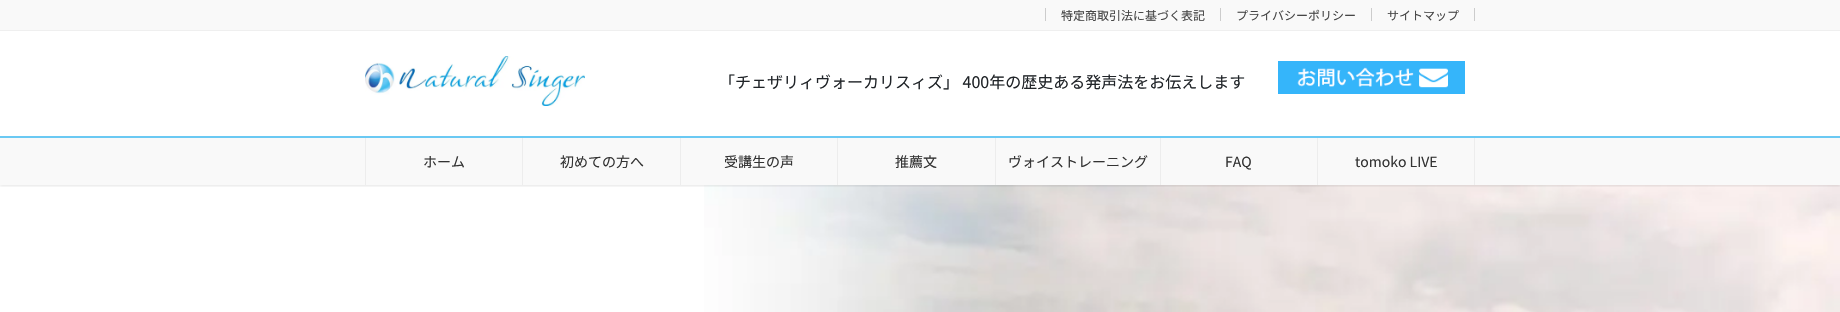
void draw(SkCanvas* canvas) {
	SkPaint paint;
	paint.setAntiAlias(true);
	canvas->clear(0xffffffff);
	canvas->drawImageRect(SkImages::DeferredFromEncodedData(SkData::MakeFromFileName("img3.png")), SkRect::MakeXYWH(704, 185, 1136, 127), SkSamplingOptions());
	canvas->save();
	canvas->clipRect(SkRect::MakeXYWH(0, 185, 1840, 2));
	paint.setColor(0x1a000000);
	paint.setMaskFilter(SkMaskFilter::MakeBlur(kNormal_SkBlurStyle, 1.5));
	canvas->drawRect(SkRect::MakeXYWH(0, -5, 1840, 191), paint);
	paint.setMaskFilter(nullptr);
	canvas->restore();
	paint.setColor(0xfff9f9f9);
	canvas->drawRect(SkRect::MakeXYWH(0, 0, 1840, 30), paint);
	paint.setColor(0xffefefef);
	canvas->drawRect(SkRect::MakeXYWH(0, 30, 1840, 1), paint);
	paint.setColor(0xffcccccc);
	canvas->drawRect(SkRect::MakeXYWH(1220, 8, 1, 13), paint);
	canvas->drawRect(SkRect::MakeXYWH(1045, 8, 1, 13), paint);
	SkFont f1(fontMgr->matchFamilyStyle("Noto Sans JP", SkFontStyle::Normal()), 12);
	f1.setSubpixel(true);
	paint.setColor(0xff464646);
	canvas->drawString("特定商取引法に基づく表記", 1061, 20, f1, paint);
	paint.setColor(0xffcccccc);
	canvas->drawRect(SkRect::MakeXYWH(1371, 8, 1, 13), paint);
	paint.setColor(0xff464646);
	canvas->drawString("プライバシーポリシー", 1236, 20, f1, paint);
	paint.setColor(0xffcccccc);
	canvas->drawRect(SkRect::MakeXYWH(1474, 8, 1, 13), paint);
	paint.setColor(0xff464646);
	canvas->drawString("サイトマップ", 1387, 20, f1, paint);
	canvas->drawImageRect(SkImages::DeferredFromEncodedData(SkData::MakeFromFileName("img1.png")), SkRect::MakeXYWH(365, 56, 220, 50), SkSamplingOptions());
	SkFont f2(fontMgr->matchFamilyStyle("Noto Sans JP", SkFontStyle::Normal()), 16);
	f2.setSubpixel(true);
	paint.setColor(0xff212529);
	canvas->drawString("「チェザリィヴォーカリスィズ」 400年の歴史ある発声法をお伝えします", 719, 88, f2, paint);
	canvas->drawImageRect(SkImages::DeferredFromEncodedData(SkData::MakeFromFileName("img2.png")), SkRect::MakeXYWH(1278, 61, 187, 33), SkSamplingOptions());
	paint.setColor(0xfff9f9f9);
	canvas->drawRect(SkRect::MakeXYWH(0, 138, 1840, 47), paint);
	paint.setColor(0xff6ac9f3);
	canvas->drawRect(SkRect::MakeXYWH(0, 136, 1840, 2), paint);
	paint.setColor(0xffededed);
	canvas->drawRect(SkRect::MakeXYWH(365, 138, 1, 47), paint);
	SkFont f3(fontMgr->matchFamilyStyle("Noto Sans JP", SkFontStyle::Normal()), 14);
	f3.setSubpixel(true);
	paint.setColor(0xff333333);
	canvas->drawString("ホーム", 423, 167, f3, paint);
	paint.setColor(0xffededed);
	canvas->drawRect(SkRect::MakeXYWH(522, 138, 1, 47), paint);
	paint.setColor(0xff333333);
	canvas->drawString("初めての方へ", 560, 167, f3, paint);
	paint.setColor(0xffededed);
	canvas->drawRect(SkRect::MakeXYWH(680, 138, 1, 47), paint);
	paint.setColor(0xff333333);
	canvas->drawString("受講生の声", 724, 167, f3, paint);
	paint.setColor(0xffededed);
	canvas->drawRect(SkRect::MakeXYWH(837, 138, 1, 47), paint);
	paint.setColor(0xff333333);
	canvas->drawString("推薦文", 895, 167, f3, paint);
	paint.setColor(0xffededed);
	canvas->drawRect(SkRect::MakeXYWH(995, 138, 1, 47), paint);
	paint.setColor(0xff333333);
	canvas->drawString("ヴォイストレーニング", 1008, 167, f3, paint);
	paint.setColor(0xffededed);
	canvas->drawRect(SkRect::MakeXYWH(1160, 138, 1, 47), paint);
	paint.setColor(0xff333333);
	canvas->drawString("FAQ", 1225, 167, f3, paint);
	paint.setColor(0xffededed);
	canvas->drawRect(SkRect::MakeXYWH(1474, 138, 1, 47), paint);
	canvas->drawRect(SkRect::MakeXYWH(1317, 138, 1, 47), paint);
	paint.setColor(0xff333333);
	canvas->drawString("tomoko LIVE", 1355, 167, f3, paint);
}
